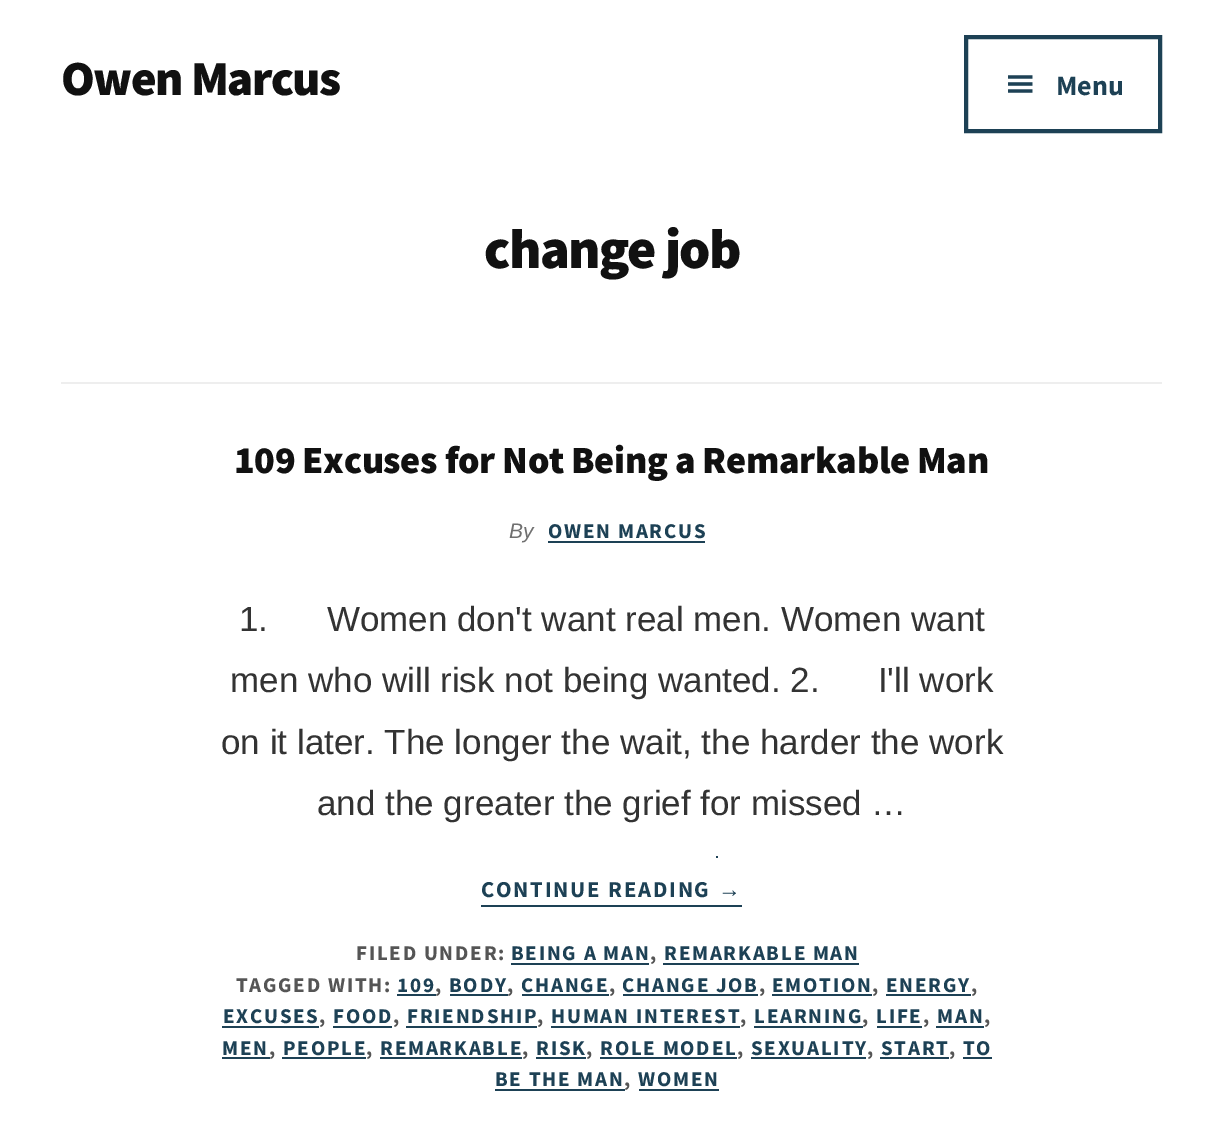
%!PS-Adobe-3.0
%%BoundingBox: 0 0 1223 1144
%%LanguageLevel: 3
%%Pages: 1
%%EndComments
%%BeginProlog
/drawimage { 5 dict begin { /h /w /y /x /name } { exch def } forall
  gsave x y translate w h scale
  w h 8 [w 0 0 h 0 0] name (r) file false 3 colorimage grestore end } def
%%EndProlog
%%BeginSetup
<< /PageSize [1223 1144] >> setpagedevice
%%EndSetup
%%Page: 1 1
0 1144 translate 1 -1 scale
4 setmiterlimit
1 setgray
0 0 1223 1144 rectfill
0.114 0.255 0.333 setrgbcolor
4 setlinewidth
966 37 194 94 rectstroke
(images/1.raw) 1008 75 25 18 drawimage
0.933 setgray
61 382 1101 2 rectfill
0.114 0.255 0.333 setrgbcolor
548 541 157 2 rectfill
716 856 2 2 rectfill
481 905 261 2 rectfill
511 963 138 2 rectfill
663 963 196 2 rectfill
397 994 39 2 rectfill
450 994 58 2 rectfill
522 994 87 2 rectfill
623 994 135 2 rectfill
772 994 100 2 rectfill
886 994 85 2 rectfill
222 1026 97 2 rectfill
333 1026 59 2 rectfill
406 1026 131 2 rectfill
551 1026 189 2 rectfill
754 1026 109 2 rectfill
877 1026 45 2 rectfill
936 1026 48 2 rectfill
222 1057 48 2 rectfill
282 1057 84 2 rectfill
380 1057 142 2 rectfill
536 1057 50 2 rectfill
600 1057 137 2 rectfill
751 1057 115 2 rectfill
880 1057 69 2 rectfill
963 1057 29 2 rectfill
495 1089 130 2 rectfill
639 1089 80 2 rectfill
/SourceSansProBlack-Black [49 0 0 -49 0 0] selectfont
0.067 setgray
61 95 moveto -1.5 0 (Owen Marcus) ashow
/SourceSansPro-Bold [28 0 0 -28 0 0] selectfont
0.114 0.255 0.333 setrgbcolor
1056 95 moveto (Menu) show
/SourceSansProBlack-Black [56 0 0 -56 0 0] selectfont
0.067 setgray
484 268 moveto -1.75 0 (change job) ashow
/SourceSansProBlack-Black [38.5 0 0 -38.5 0 0] selectfont
234 473 moveto -0.4 0 (109 Excuses for Not Being a Remarkable Man) ashow
/LiberationSans-Italic [21 0 0 -21 0 0] selectfont
0.439 setgray
509 538 moveto (By) show
/SourceSansPro-Bold [21 0 0 -21 0 0] selectfont
0.114 0.255 0.333 setrgbcolor
548 538 moveto 1.75 0 (OWEN MARCUS) ashow
/LiberationSans-Regular [35 0 0 -35 0 0] selectfont
0.2 setgray
239 631 moveto (1.      Women don't want real men. Women want) show
230 692 moveto (men who will risk not being wanted. 2.      I'll work) show
221 754 moveto (on it later. The longer the wait, the harder the work) show
317 815 moveto (and the greater the grief for missed …) show
/SourceSansPro-Bold [22.75 0 0 -22.75 0 0] selectfont
0.114 0.255 0.333 setrgbcolor
481 897 moveto 1.8 0 (CONTINUE READING) ashow
/LiberationSans-Bold [22.75 0 0 -22.75 0 0] selectfont
718 897 moveto 1.8 0 (→) ashow
/SourceSansPro-Bold [21 0 0 -21 0 0] selectfont
0.333 setgray
356 960 moveto 1.75 0 (FILED UNDER:) ashow
0.114 0.255 0.333 setrgbcolor
511 960 moveto 1.75 0 (BEING A MAN) ashow
0.333 setgray
650 960 moveto 1.75 0 (,) ashow
0.114 0.255 0.333 setrgbcolor
664 960 moveto 1.75 0 (REMARKABLE MAN) ashow
0.333 setgray
236 992 moveto 1.75 0 (TAGGED WITH:) ashow
0.114 0.255 0.333 setrgbcolor
397 992 moveto 1.75 0 (109) ashow
0.333 setgray
435 992 moveto 1.75 0 (,) ashow
0.114 0.255 0.333 setrgbcolor
449 992 moveto 1.75 0 (BODY) ashow
0.333 setgray
507 992 moveto 1.75 0 (,) ashow
0.114 0.255 0.333 setrgbcolor
521 992 moveto 1.75 0 (CHANGE) ashow
0.333 setgray
609 992 moveto 1.75 0 (,) ashow
0.114 0.255 0.333 setrgbcolor
622 992 moveto 1.75 0 (CHANGE JOB) ashow
0.333 setgray
759 992 moveto 1.75 0 (,) ashow
0.114 0.255 0.333 setrgbcolor
772 992 moveto 1.75 0 (EMOTION) ashow
0.333 setgray
872 992 moveto 1.75 0 (,) ashow
0.114 0.255 0.333 setrgbcolor
886 992 moveto 1.75 0 (ENERGY) ashow
0.333 setgray
971 992 moveto 1.75 0 (,) ashow
0.114 0.255 0.333 setrgbcolor
223 1023 moveto 1.75 0 (EXCUSES) ashow
0.333 setgray
319 1023 moveto 1.75 0 (,) ashow
0.114 0.255 0.333 setrgbcolor
333 1023 moveto 1.75 0 (FOOD) ashow
0.333 setgray
393 1023 moveto 1.75 0 (,) ashow
0.114 0.255 0.333 setrgbcolor
407 1023 moveto 1.75 0 (FRIENDSHIP) ashow
0.333 setgray
537 1023 moveto 1.75 0 (,) ashow
0.114 0.255 0.333 setrgbcolor
551 1023 moveto 1.75 0 (HUMAN INTEREST) ashow
0.333 setgray
740 1023 moveto 1.75 0 (,) ashow
0.114 0.255 0.333 setrgbcolor
754 1023 moveto 1.75 0 (LEARNING) ashow
0.333 setgray
862 1023 moveto 1.75 0 (,) ashow
0.114 0.255 0.333 setrgbcolor
876 1023 moveto 1.75 0 (LIFE) ashow
0.333 setgray
923 1023 moveto 1.75 0 (,) ashow
0.114 0.255 0.333 setrgbcolor
937 1023 moveto 1.75 0 (MAN) ashow
0.333 setgray
984 1023 moveto 1.75 0 (,) ashow
0.114 0.255 0.333 setrgbcolor
222 1055 moveto 1.75 0 (MEN) ashow
0.333 setgray
269 1055 moveto 1.75 0 (,) ashow
0.114 0.255 0.333 setrgbcolor
283 1055 moveto 1.75 0 (PEOPLE) ashow
0.333 setgray
366 1055 moveto 1.75 0 (,) ashow
0.114 0.255 0.333 setrgbcolor
380 1055 moveto 1.75 0 (REMARKABLE) ashow
0.333 setgray
522 1055 moveto 1.75 0 (,) ashow
0.114 0.255 0.333 setrgbcolor
536 1055 moveto 1.75 0 (RISK) ashow
0.333 setgray
586 1055 moveto 1.75 0 (,) ashow
0.114 0.255 0.333 setrgbcolor
600 1055 moveto 1.75 0 (ROLE MODEL) ashow
0.333 setgray
737 1055 moveto 1.75 0 (,) ashow
0.114 0.255 0.333 setrgbcolor
751 1055 moveto 1.75 0 (SEXUALITY) ashow
0.333 setgray
867 1055 moveto 1.75 0 (,) ashow
0.114 0.255 0.333 setrgbcolor
881 1055 moveto 1.75 0 (START) ashow
0.333 setgray
949 1055 moveto 1.75 0 (,) ashow
0.114 0.255 0.333 setrgbcolor
963 1055 moveto 1.75 0 (TO) ashow
495 1086 moveto 1.75 0 (BE THE MAN) ashow
0.333 setgray
624 1086 moveto 1.75 0 (,) ashow
0.114 0.255 0.333 setrgbcolor
638 1086 moveto 1.75 0 (WOMEN) ashow
showpage
%%EOF
